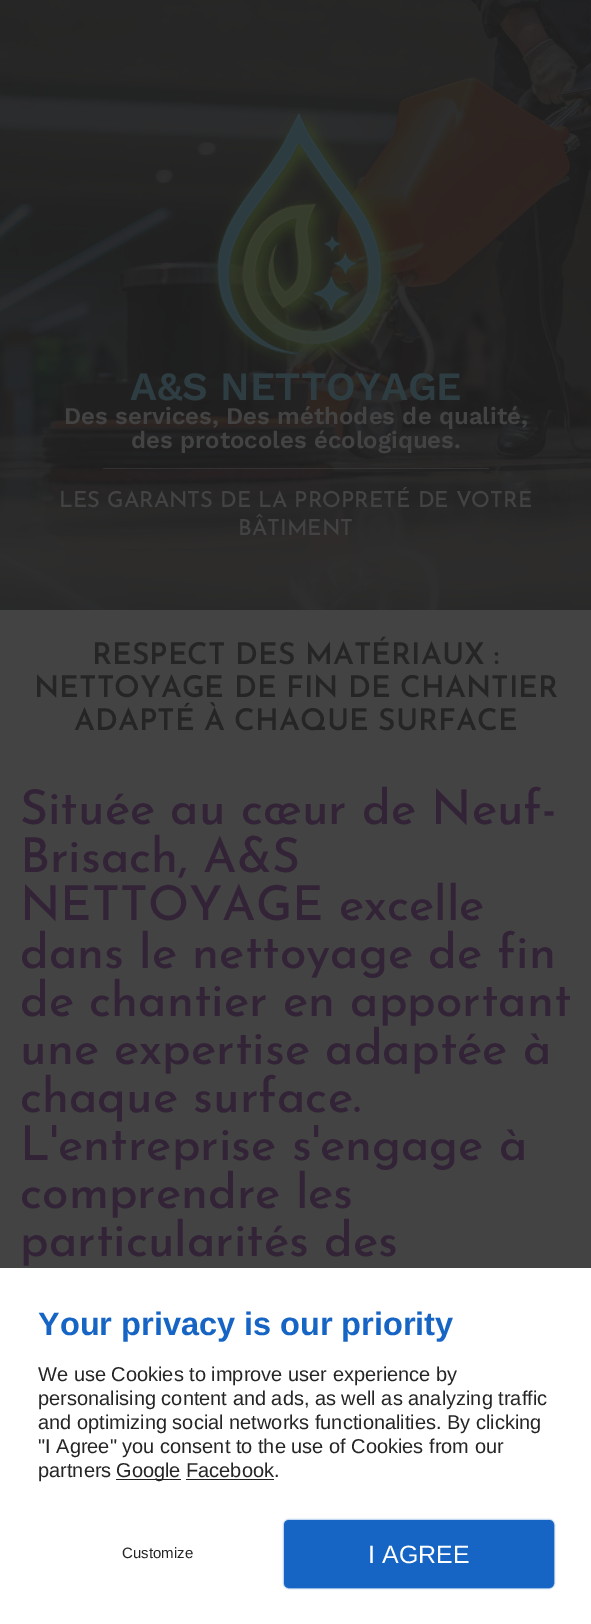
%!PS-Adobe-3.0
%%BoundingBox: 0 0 591 1624
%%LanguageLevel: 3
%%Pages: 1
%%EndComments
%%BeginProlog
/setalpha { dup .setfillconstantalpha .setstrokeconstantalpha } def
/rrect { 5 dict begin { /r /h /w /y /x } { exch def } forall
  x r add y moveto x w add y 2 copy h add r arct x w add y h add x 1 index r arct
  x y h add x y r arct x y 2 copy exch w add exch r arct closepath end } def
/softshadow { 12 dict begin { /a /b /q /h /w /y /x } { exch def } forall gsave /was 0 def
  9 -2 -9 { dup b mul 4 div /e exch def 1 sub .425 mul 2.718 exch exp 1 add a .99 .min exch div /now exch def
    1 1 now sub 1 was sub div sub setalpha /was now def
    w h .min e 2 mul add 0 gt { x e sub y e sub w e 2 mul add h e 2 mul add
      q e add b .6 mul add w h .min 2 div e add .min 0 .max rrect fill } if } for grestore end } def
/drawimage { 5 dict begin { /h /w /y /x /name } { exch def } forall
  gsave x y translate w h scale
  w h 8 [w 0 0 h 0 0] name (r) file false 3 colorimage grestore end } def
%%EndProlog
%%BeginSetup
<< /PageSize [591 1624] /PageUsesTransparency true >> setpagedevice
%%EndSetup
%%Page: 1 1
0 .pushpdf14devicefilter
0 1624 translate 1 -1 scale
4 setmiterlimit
0.263 setgray
0 0 591 1624 rectfill
(images/1.raw) 0 0 591 610 drawimage
(images/2.raw) 209 107 192 263 drawimage
0.5 setalpha
103 468 386 1 rectfill
1 setalpha
1 setgray
0 1268 591 356 rectfill
0.133 setgray
116 1479 65 1 rectfill
0.086 0.396 0.769 setrgbcolor
283 1519 272 70 6 0.5 0.3 softshadow
285.5 1521.5 267 65 3.5 rrect gsave fill grestore
3 setlinewidth
stroke
/WorkSans-SemiBold [40 0 0 -40 0 0] selectfont
0.18 0.239 0.259 setrgbcolor
130 400 moveto (A&S NETTOYAGE) show
/WorkSans-SemiBold [24 0 0 -24 0 0] selectfont
0.263 setgray
64 424 moveto (Des services, Des méthodes de qualité,) show
131 448 moveto (des protocoles écologiques.) show
/JosefinSans-Medium [22 0 0 -22 0 0] selectfont
59 507 moveto (LES GARANTS DE LA PROPRETÉ DE VOTRE) show
238 535 moveto (BÂTIMENT) show
/JosefinSans-SemiBold [30 0 0 -30 0 0] selectfont
0.145 setgray
92 664 moveto (RESPECT DES MATÉRIAUX :) show
34 697 moveto (NETTOYAGE DE FIN DE CHANTIER) show
74 730 moveto (ADAPTÉ À CHAQUE SURFACE) show
/JosefinSans-Medium [48 0 0 -48 0 0] selectfont
0.2 0.137 0.216 setrgbcolor
20 824 moveto (Située au cœur de Neuf-) show
20 872 moveto (Brisach, A&S) show
20 920 moveto (NETTOYAGE excelle) show
20 968 moveto (dans le nettoyage de fin) show
20 1016 moveto (de chantier en apportant) show
20 1064 moveto (une expertise adaptée à) show
20 1112 moveto (chaque surface.) show
20 1160 moveto (L'entreprise s'engage à) show
20 1208 moveto (comprendre les) show
20 1256 moveto (particularités des) show
/LiberationSans-Bold [32.5 0 0 -32.5 0 0] selectfont
0.086 0.396 0.769 setrgbcolor
38 1335 moveto (Your privacy is our priority) show
/LiberationSans-Regular [20 0 0 -20 0 0] selectfont
0.145 setgray
38 1381 moveto (We use Cookies to improve user experience by) show
38 1405 moveto (personalising content and ads, as well as analyzing traffic) show
38 1429 moveto (and optimizing social networks functionalities. By clicking) show
38 1453 moveto ("I Agree" you consent to the use of Cookies from our) show
38 1477 moveto (partners) show
116 1477 moveto (Google Facebook.) show
0.133 setgray
186 1479 88 1 rectfill
/LiberationSans-Regular [15 0 0 -15 0 0] selectfont
0.145 setgray
122 1558 moveto (Customize) show
/LiberationSans-Regular [25 0 0 -25 0 0] selectfont
1 setgray
368 1563 moveto (I AGREE) show
.poppdf14devicefilter showpage
%%EOF
